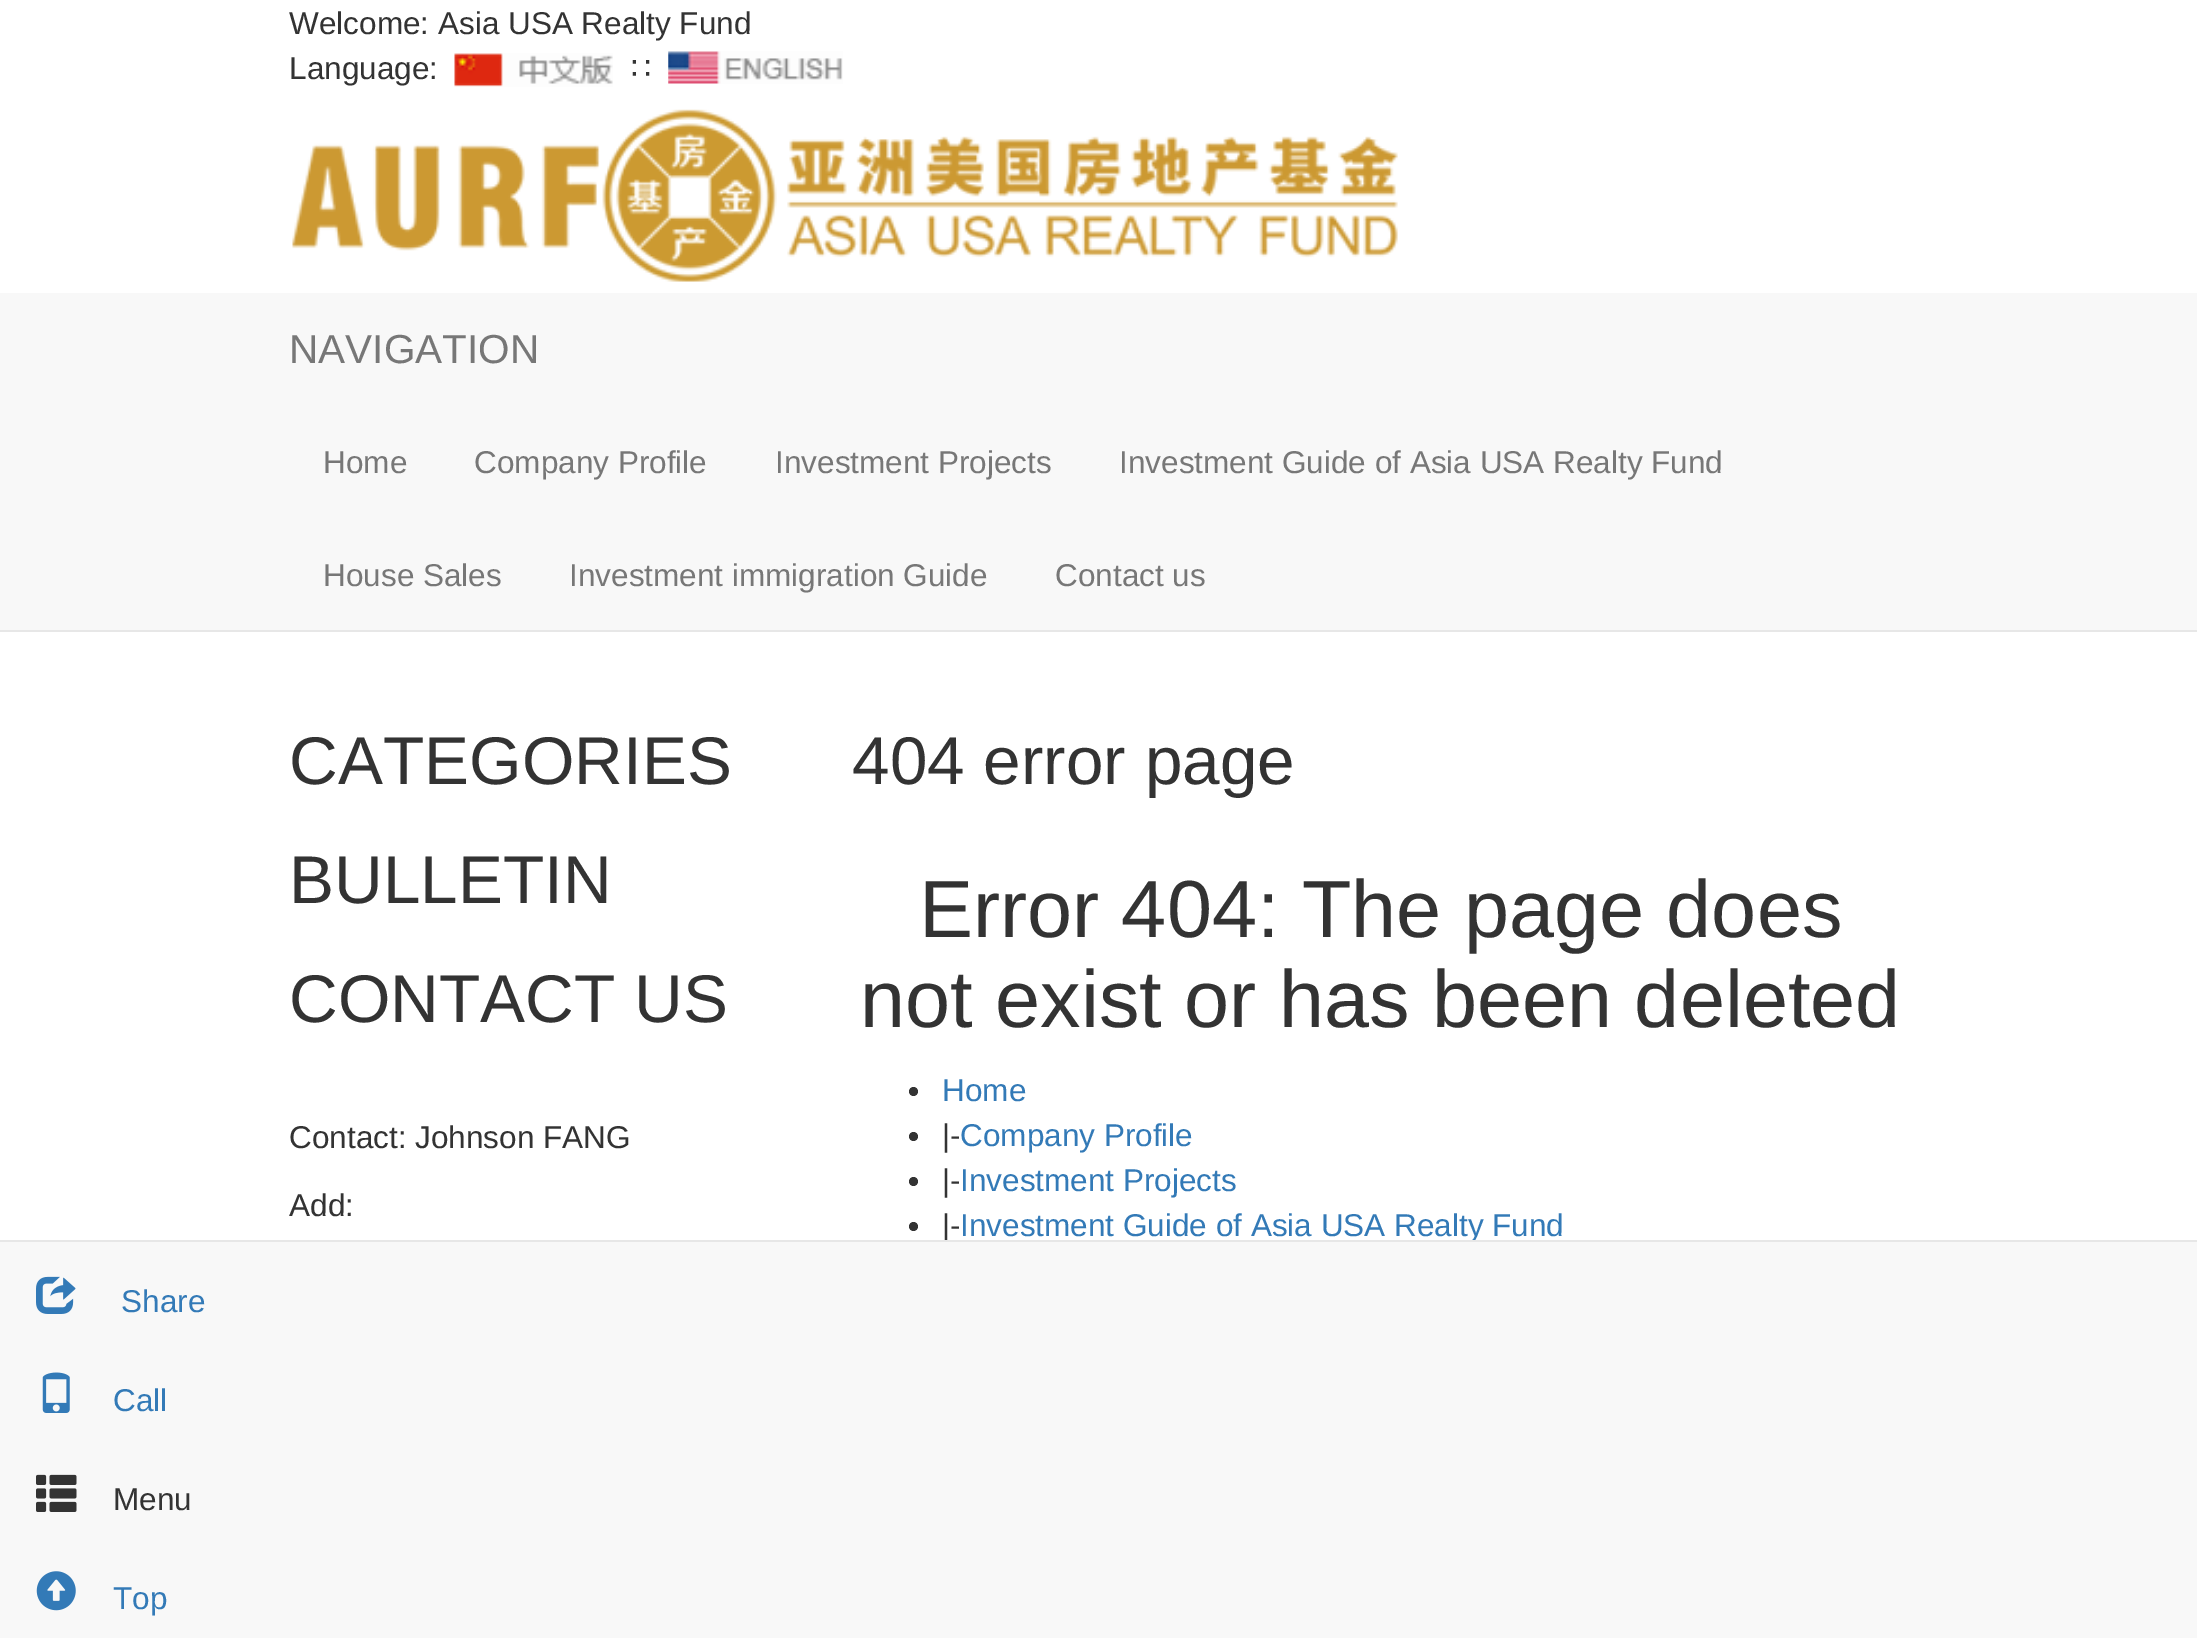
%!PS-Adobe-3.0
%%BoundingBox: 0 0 2197 1638
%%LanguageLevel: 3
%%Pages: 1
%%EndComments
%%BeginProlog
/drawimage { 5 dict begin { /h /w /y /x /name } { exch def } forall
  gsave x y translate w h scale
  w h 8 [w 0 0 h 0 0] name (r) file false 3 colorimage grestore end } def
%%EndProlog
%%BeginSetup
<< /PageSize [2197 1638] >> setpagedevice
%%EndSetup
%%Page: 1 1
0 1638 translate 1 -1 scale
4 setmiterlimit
1 setgray
0 0 2197 1638 rectfill
(images/1.raw) 454 53 159 34 drawimage
(images/2.raw) 668 51 175 33 drawimage
(images/3.raw) 292 109 1106 173 drawimage
0.973 setgray
0 293 2197 337 rectfill
0.906 setgray
0 630 2197 2 rectfill
0.2 setgray
newpath 913.5 1091.5 4.5 0 360 arc closepath fill
newpath 913.5 1136.5 4.5 0 360 arc closepath fill
newpath 913.5 1181.5 4.5 0 360 arc closepath fill
newpath 913.5 1226.5 4.5 0 360 arc closepath fill
/LiberationSans-Regular [31.5 0 0 -31.5 0 0] selectfont
289 34 moveto (Welcome: Asia USA Realty Fund) show
289 79 moveto (Language:) show
/DejaVuSans-Regular [31.5 0 0 -31.5 0 0] selectfont
631 79 moveto (∷) show
/LiberationSans-Regular [40.5 0 0 -40.5 0 0] selectfont
0.467 setgray
289 363 moveto (NAVIGATION) show
/LiberationSans-Regular [31.5 0 0 -31.5 0 0] selectfont
323 473 moveto (Home) show
474 473 moveto (Company Profile) show
775 473 moveto (Investment Projects) show
1119 473 moveto (Investment Guide of Asia USA Realty Fund) show
323 586 moveto (House Sales) show
569 586 moveto (Investment immigration Guide) show
1055 586 moveto (Contact us) show
/LiberationSans-Regular [67.5 0 0 -67.5 0 0] selectfont
0.2 setgray
289 784 moveto (CATEGORIES) show
289 903 moveto (BULLETIN) show
289 1022 moveto (CONTACT US) show
/LiberationSans-Regular [31.5 0 0 -31.5 0 0] selectfont
289 1148 moveto (Contact: Johnson FANG) show
289 1216 moveto (Add:) show
/LiberationSans-Regular [67.5 0 0 -67.5 0 0] selectfont
852 784 moveto (404 error page) show
/LiberationSans-Regular [81 0 0 -81 0 0] selectfont
919 937 moveto (Error 404: The page does) show
860 1027 moveto (not exist or has been deleted) show
/LiberationSans-Regular [31.5 0 0 -31.5 0 0] selectfont
0.2 0.478 0.718 setrgbcolor
942 1101 moveto (Home) show
0.2 setgray
942 1146 moveto (|-) show
0.2 0.478 0.718 setrgbcolor
960 1146 moveto (Company Profile) show
0.2 setgray
942 1191 moveto (|-) show
0.2 0.478 0.718 setrgbcolor
960 1191 moveto (Investment Projects) show
0.2 setgray
942 1236 moveto (|-) show
0.2 0.478 0.718 setrgbcolor
960 1236 moveto (Investment Guide of Asia USA Realty Fund) show
0.973 setgray
0 1242 2197 396 rectfill
0.906 setgray
0 1240 2197 2 rectfill
(images/4.raw) 36 1276 40 38 drawimage
0.2 0.478 0.718 setrgbcolor
121 1312 moveto (Share) show
(images/5.raw) 42 1372 28 41 drawimage
113 1411 moveto (Call) show
(images/6.raw) 36 1474 41 38 drawimage
0.2 setgray
113 1510 moveto (Menu) show
(images/7.raw) 36 1571 40 40 drawimage
0.2 0.478 0.718 setrgbcolor
113 1609 moveto (Top) show
showpage
%%EOF
